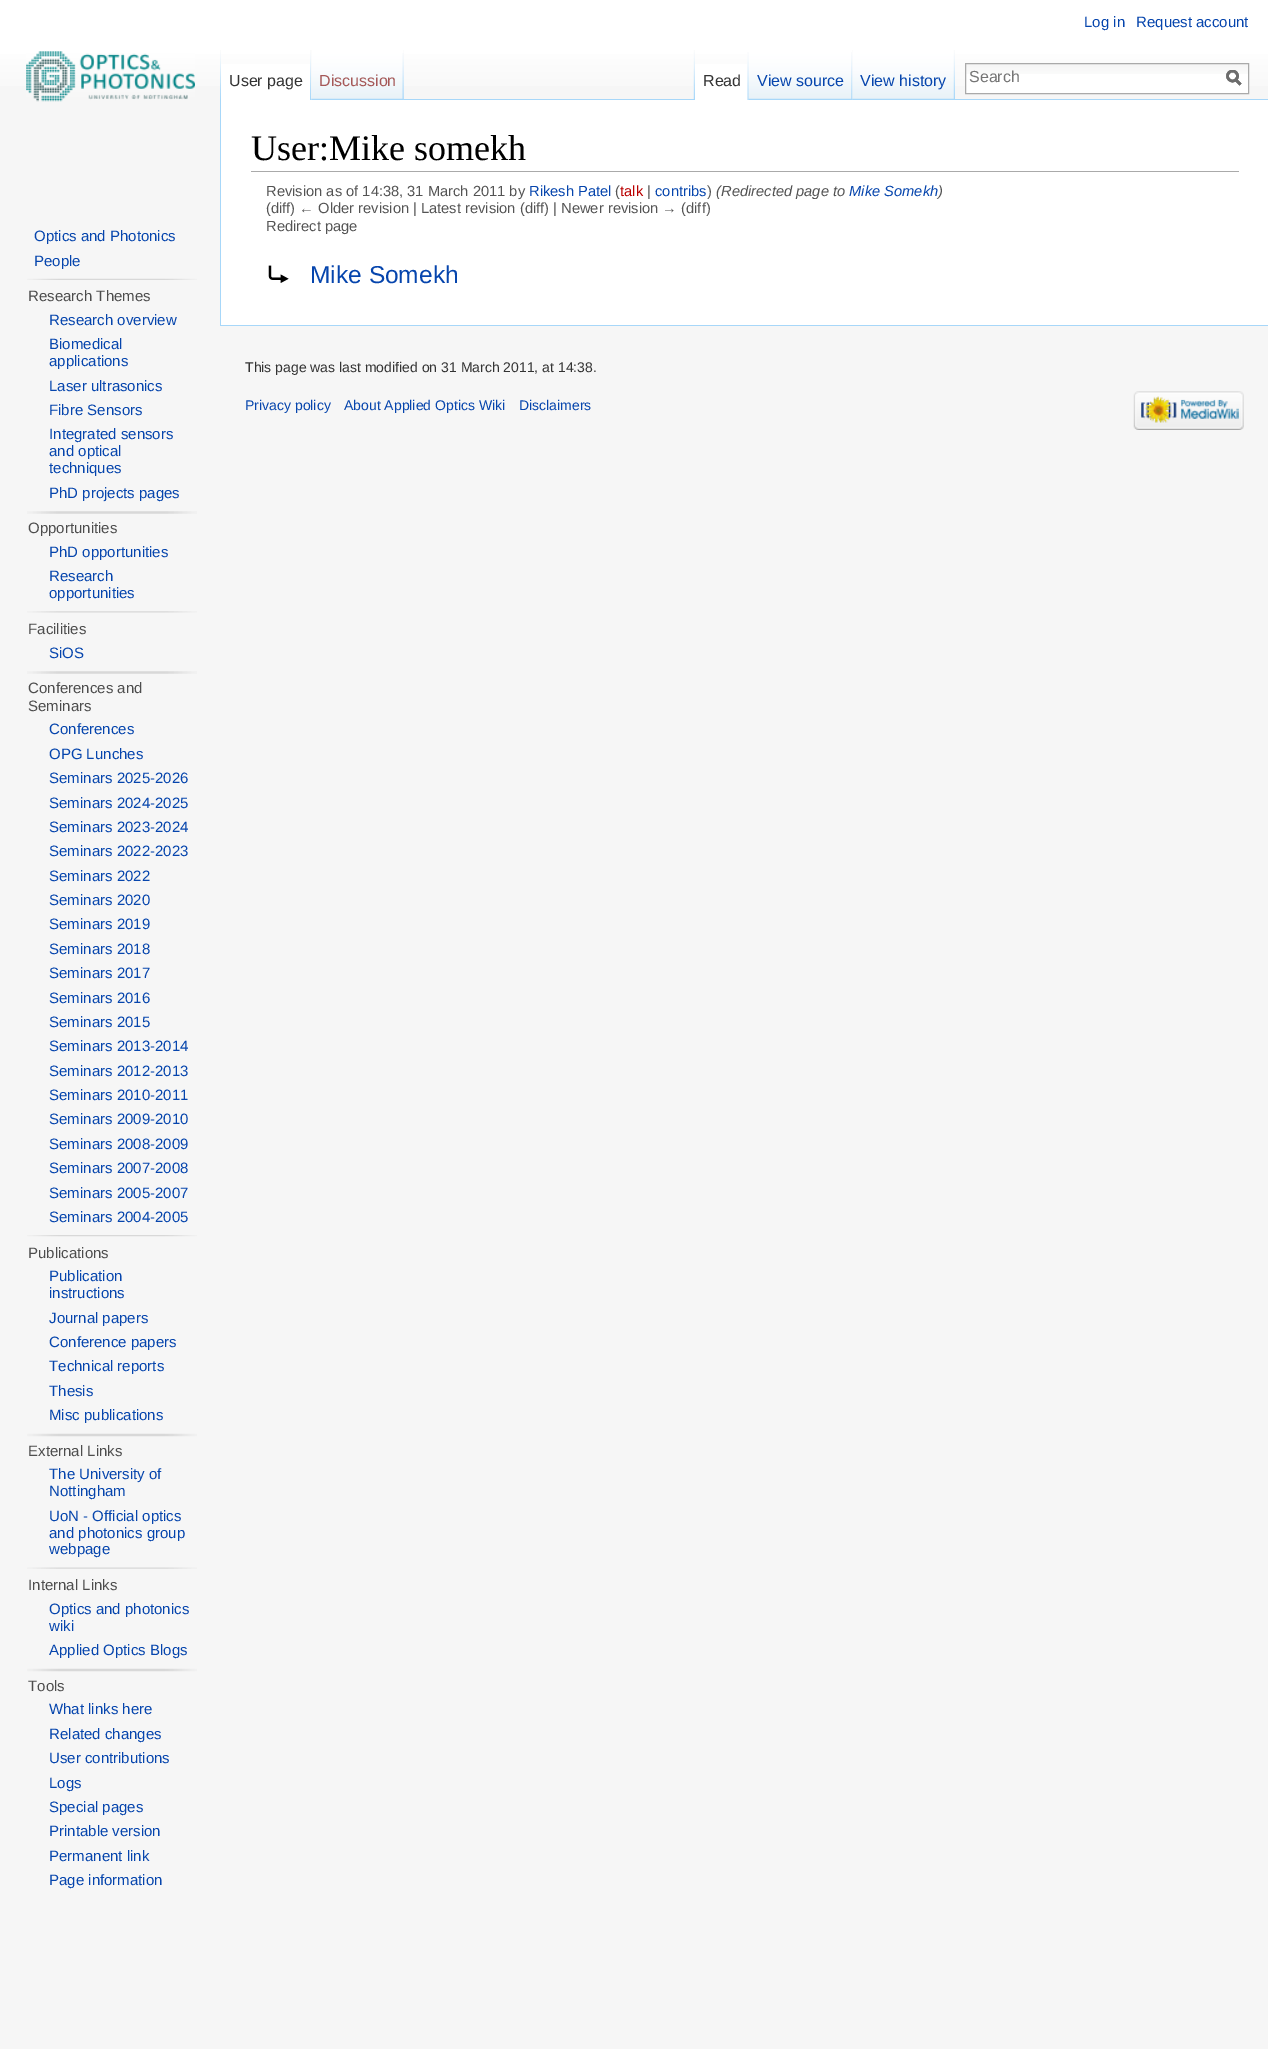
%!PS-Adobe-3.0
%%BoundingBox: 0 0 1268 2049
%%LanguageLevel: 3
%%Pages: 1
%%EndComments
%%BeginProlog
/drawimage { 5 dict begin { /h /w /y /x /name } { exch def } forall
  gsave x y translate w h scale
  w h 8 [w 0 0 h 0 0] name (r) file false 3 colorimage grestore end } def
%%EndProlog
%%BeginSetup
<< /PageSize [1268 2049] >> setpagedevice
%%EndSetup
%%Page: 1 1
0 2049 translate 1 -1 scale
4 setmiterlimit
0.965 setgray
0 0 1268 2049 rectfill
gsave newpath 0 0 moveto 1268 0 lineto 1268 86 lineto 0 86 lineto closepath clip newpath
<< /ShadingType 2 /ColorSpace /DeviceRGB /Coords [634 0 634 100] /Extend [true true] /Function << /FunctionType 3 /Domain [0 1] /Functions [<< /FunctionType 2 /Domain [0 1] /C0 [1 1 1] /C1 [1 1 1] /N 1 >> << /FunctionType 2 /Domain [0 1] /C0 [1 1 1] /C1 [0.965 0.965 0.965] /N 1 >>] /Bounds [0.5] /Encode [0 1 0 1] >> >> shfill grestore
(images/1.raw) 220 50 1 49 drawimage
(images/2.raw) 403 52 1 47 drawimage
1 setgray
221 64 91 36 rectfill
(images/3.raw) 310 50 2 50 drawimage
0.655 0.843 0.976 setrgbcolor
403 99 865 1 rectfill
(images/4.raw) 311 50 93 50 drawimage
(images/5.raw) 402 53 2 47 drawimage
(images/6.raw) 693 50 2 49 drawimage
1 setgray
695 64 54 36 rectfill
(images/7.raw) 747 52 2 48 drawimage
(images/8.raw) 748 50 105 50 drawimage
(images/9.raw) 851 52 2 48 drawimage
(images/10.raw) 852 50 103 50 drawimage
(images/11.raw) 953 50 2 49 drawimage
966 74 282 19 rectfill
(images/12.raw) 966 64 282 10 drawimage
0.667 setgray
965.5 63.5 283 30 rectstroke
0.424 setgray
2.5 setlinewidth
newpath 1240.5 84.5 moveto 1235.5 79.5 lineto stroke
gsave
1226 70 15 16 rectclip
newpath 1232.5 76 5 0 360 arc closepath stroke
grestore
newpath 1240.5 84.5 moveto 1235.5 79.5 lineto stroke
gsave
1226 70 15 16 rectclip
newpath 1232.5 76 5 0 360 arc closepath stroke
grestore
(images/13.raw) 26 51 169 51 drawimage
(images/14.raw) 27 278 170 2 drawimage
(images/15.raw) 27 511 170 3 drawimage
(images/16.raw) 27 611 170 2 drawimage
(images/15.raw) 27 671 170 3 drawimage
(images/17.raw) 27 1235 170 2 drawimage
(images/18.raw) 27 1433 170 4 drawimage
(images/19.raw) 27 1567 170 2 drawimage
(images/18.raw) 27 1668 170 4 drawimage
1 setgray
221 100 1047 225 rectfill
0.655 0.843 0.976 setrgbcolor
220 325 1048 1 rectfill
220 99 1 227 rectfill
0.667 setgray
251 171 988 1 rectfill
(images/20.raw) 268 265 21 18 drawimage
(images/21.raw) 1133 391 111 39 drawimage
/LiberationSans-Regular [15 0 0 -15 0 0] selectfont
0.024 0.271 0.678 setrgbcolor
1084 27 moveto (Log in) show
1136 27 moveto (Request account) show
/LiberationSans-Regular [16 0 0 -16 0 0] selectfont
0.2 setgray
229 86 moveto (User page) show
0.647 0.345 0.345 setrgbcolor
319 86 moveto (Discussion) show
0.2 setgray
703 86 moveto (Read) show
0.024 0.271 0.678 setrgbcolor
757 86 moveto (View source) show
860 86 moveto (View history) show
0.459 setgray
969 82 moveto (Search) show
/LiberationSans-Regular [15 0 0 -15 0 0] selectfont
0.024 0.271 0.678 setrgbcolor
34 241 moveto (Optics and Photonics) show
34 266 moveto (People) show
0.302 setgray
28 301 moveto (Research Themes) show
0.024 0.271 0.678 setrgbcolor
49 325 moveto (Research overview) show
49 349 moveto (Biomedical) show
49 366 moveto (applications) show
49 391 moveto (Laser ultrasonics) show
49 415 moveto (Fibre Sensors) show
49 439 moveto (Integrated sensors) show
49 456 moveto (and optical) show
49 473 moveto (techniques) show
49 498 moveto (PhD projects pages) show
0.302 setgray
28 533 moveto (Opportunities) show
0.024 0.271 0.678 setrgbcolor
49 557 moveto (PhD opportunities) show
49 581 moveto (Research) show
49 598 moveto (opportunities) show
0.302 setgray
28 634 moveto (Facilities) show
0.024 0.271 0.678 setrgbcolor
49 658 moveto (SiOS) show
0.302 setgray
28 693 moveto (Conferences and) show
28 711 moveto (Seminars) show
0.024 0.271 0.678 setrgbcolor
49 734 moveto (Conferences) show
49 759 moveto (OPG Lunches) show
49 783 moveto (Seminars 2025-2026) show
49 808 moveto (Seminars 2024-2025) show
49 832 moveto (Seminars 2023-2024) show
49 856 moveto (Seminars 2022-2023) show
49 881 moveto (Seminars 2022) show
49 905 moveto (Seminars 2020) show
49 929 moveto (Seminars 2019) show
49 954 moveto (Seminars 2018) show
49 978 moveto (Seminars 2017) show
49 1003 moveto (Seminars 2016) show
49 1027 moveto (Seminars 2015) show
49 1051 moveto (Seminars 2013-2014) show
49 1076 moveto (Seminars 2012-2013) show
49 1100 moveto (Seminars 2010-2011) show
49 1124 moveto (Seminars 2009-2010) show
49 1149 moveto (Seminars 2008-2009) show
49 1173 moveto (Seminars 2007-2008) show
49 1198 moveto (Seminars 2005-2007) show
49 1222 moveto (Seminars 2004-2005) show
0.302 setgray
28 1258 moveto (Publications) show
0.024 0.271 0.678 setrgbcolor
49 1281 moveto (Publication) show
49 1298 moveto (instructions) show
49 1323 moveto (Journal papers) show
49 1347 moveto (Conference papers) show
49 1371 moveto (Technical reports) show
49 1396 moveto (Thesis) show
49 1420 moveto (Misc publications) show
0.302 setgray
28 1456 moveto (External Links) show
0.024 0.271 0.678 setrgbcolor
49 1479 moveto (The University of) show
49 1496 moveto (Nottingham) show
49 1521 moveto (UoN - Official optics) show
49 1538 moveto (and photonics group) show
49 1554 moveto (webpage) show
0.302 setgray
28 1590 moveto (Internal Links) show
0.024 0.271 0.678 setrgbcolor
49 1614 moveto (Optics and photonics) show
49 1631 moveto (wiki) show
49 1655 moveto (Applied Optics Blogs) show
0.302 setgray
28 1691 moveto (Tools) show
0.024 0.271 0.678 setrgbcolor
49 1714 moveto (What links here) show
49 1739 moveto (Related changes) show
49 1763 moveto (User contributions) show
49 1788 moveto (Logs) show
49 1812 moveto (Special pages) show
49 1836 moveto (Printable version) show
49 1861 moveto (Permanent link) show
49 1885 moveto (Page information) show
/LiberationSerif-Regular [36 0 0 -36 0 0] selectfont
0 setgray
251 160 moveto (User:Mike somekh) show
/LiberationSans-Regular [14.7 0 0 -14.7 0 0] selectfont
0.329 setgray
266 196 moveto (Revision as of 14:38, 31 March 2011 by) show
0.024 0.271 0.678 setrgbcolor
529 196 moveto (Rikesh Patel) show
0.329 setgray
615 196 moveto (\() show
0.729 0 0 setrgbcolor
620 196 moveto (talk) show
0.329 setgray
647 196 moveto (|) show
0.024 0.271 0.678 setrgbcolor
655 196 moveto (contribs) show
0.329 setgray
707 196 moveto (\)) show
/LiberationSans-Italic [14.7 0 0 -14.7 0 0] selectfont
716 196 moveto (\(Redirected page to) show
0.024 0.271 0.678 setrgbcolor
849 196 moveto (Mike Somekh) show
0.329 setgray
938 196 moveto (\)) show
/LiberationSans-Regular [14.7 0 0 -14.7 0 0] selectfont
266 213 moveto (\(diff\) ← Older revision | Latest revision \(diff\) | Newer revision → \(diff\)) show
266 231 moveto (Redirect page) show
/LiberationSans-Regular [24.5 0 0 -24.5 0 0] selectfont
0.024 0.271 0.678 setrgbcolor
310 283 moveto (Mike Somekh) show
/LiberationSans-Regular [14 0 0 -14 0 0] selectfont
0.2 setgray
245 372 moveto (This page was last modified on 31 March 2011, at 14:38.) show
0.024 0.271 0.678 setrgbcolor
245 410 moveto (Privacy policy) show
344 410 moveto (About Applied Optics Wiki) show
519 410 moveto (Disclaimers) show
showpage
%%EOF
